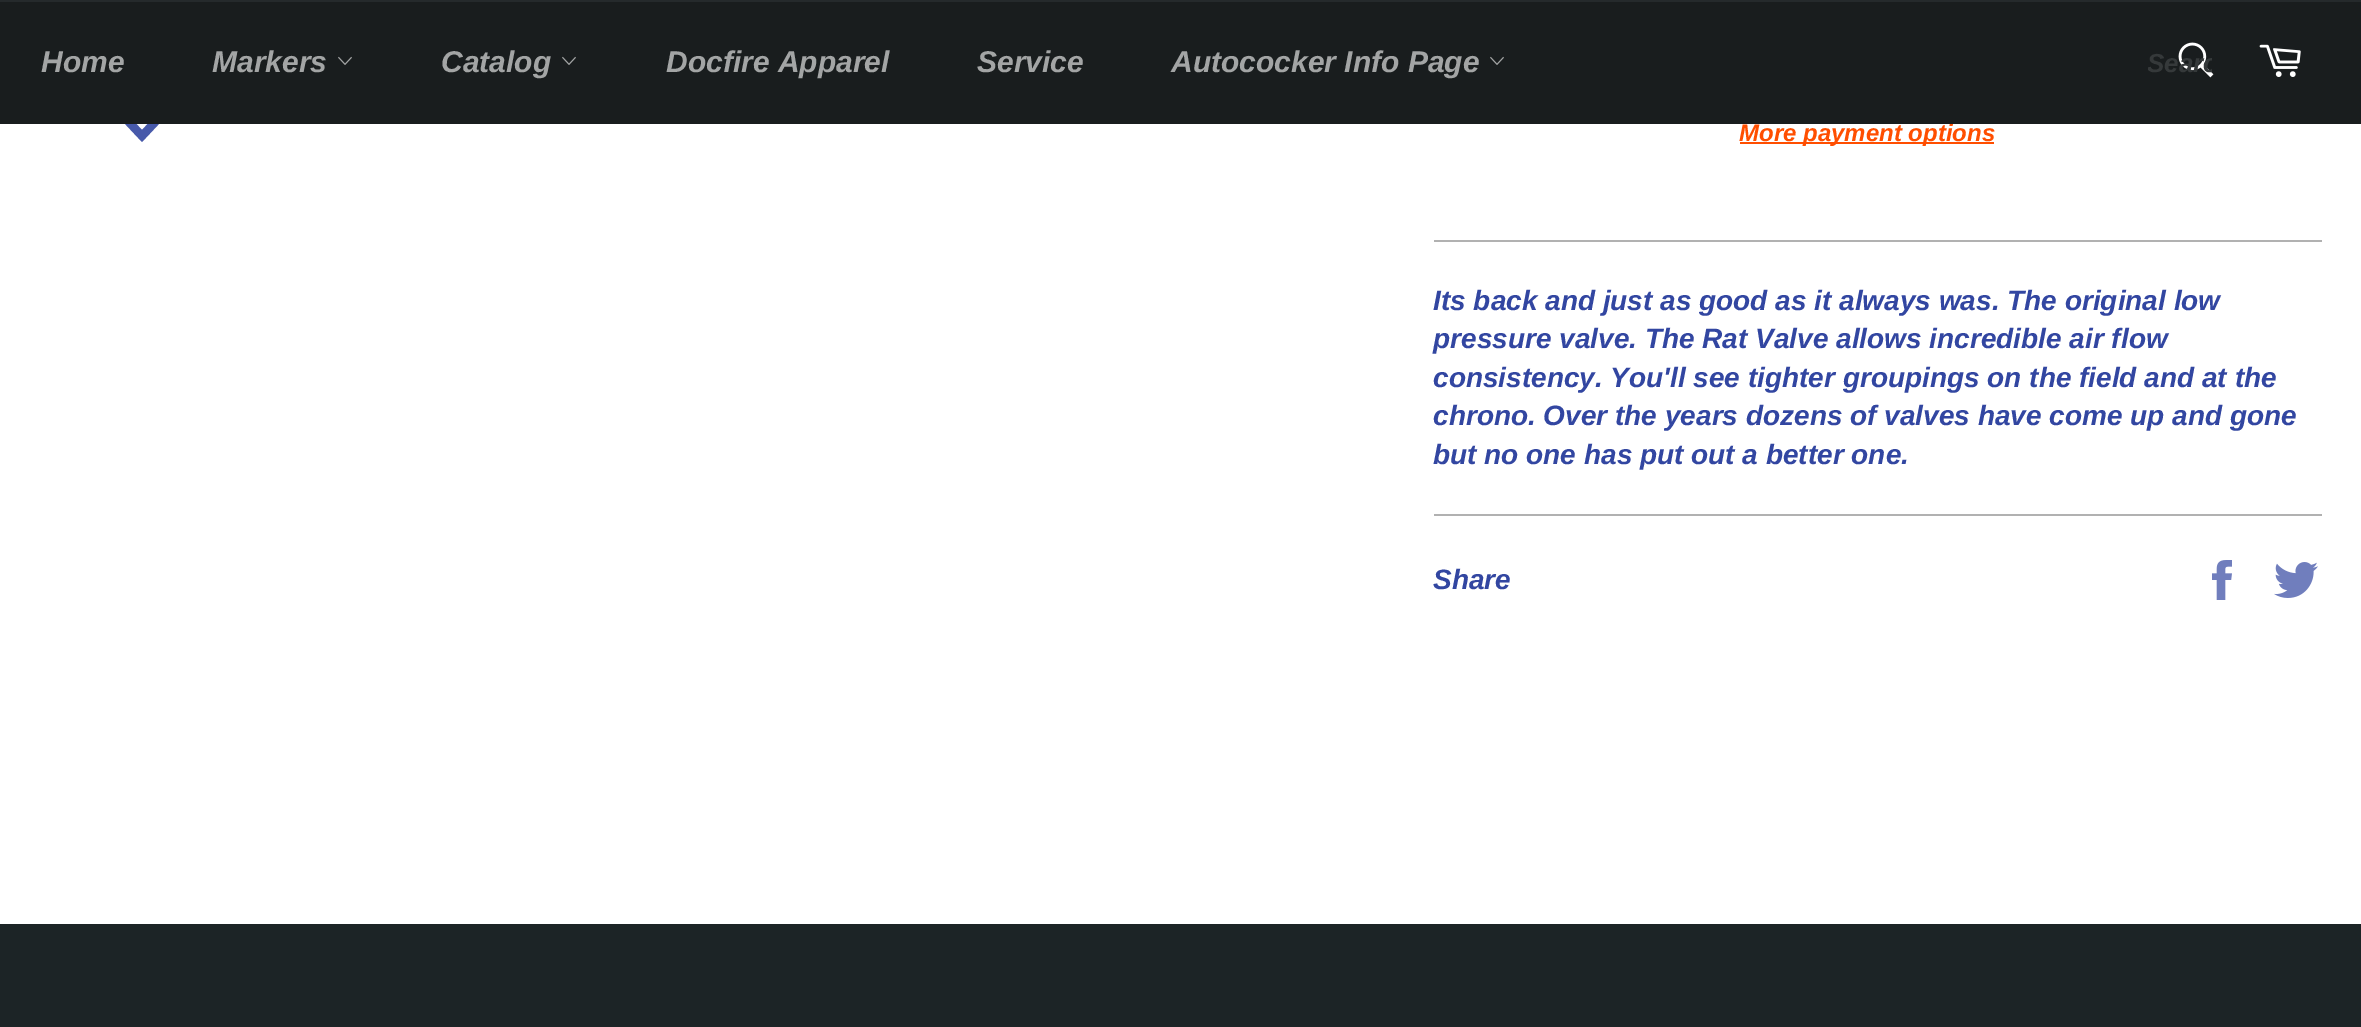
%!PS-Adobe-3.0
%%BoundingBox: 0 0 2361 1027
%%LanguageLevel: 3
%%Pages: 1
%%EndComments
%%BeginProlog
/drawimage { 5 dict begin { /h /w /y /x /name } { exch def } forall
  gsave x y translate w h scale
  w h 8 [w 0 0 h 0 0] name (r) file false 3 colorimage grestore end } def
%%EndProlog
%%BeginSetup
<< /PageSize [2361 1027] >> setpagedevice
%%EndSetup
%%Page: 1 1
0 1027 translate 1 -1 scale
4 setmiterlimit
1 setgray
0 0 2361 1027 rectfill
0.145 0.165 0.173 setrgbcolor
0 0 2361 2 rectfill
0.278 0.349 0.667 setrgbcolor
newpath 183 86 moveto 189 92 lineto 142 142 lineto 95 92 lineto 101 86 lineto 142 130 lineto closepath fill
1 0.306 0 setrgbcolor
1740 142 254 2 rectfill
0.694 setgray
1434 240 888 2 rectfill
1434 514 888 2 rectfill
(images/4.raw) 2212 560 20 40 drawimage
(images/5.raw) 2274 562 44 36 drawimage
0.11 0.141 0.149 setrgbcolor
0 924 2361 103 rectfill
/Arimo-BoldItalic [24 0 0 -24 0 0] selectfont
1 0.306 0 setrgbcolor
1739 141 moveto (More payment options) show
0.098 0.114 0.118 setrgbcolor
0 2 2361 122 rectfill
(images/2.raw) 2178 42 36 36 drawimage
gsave
2148 48 64 30 rectclip
/Arimo-BoldItalic [26 0 0 -26 0 0] selectfont
0.208 0.224 0.227 setrgbcolor
2147 72 moveto (Searc) show
grestore
(images/3.raw) 2259 44 42 33 drawimage
(images/1.raw) 1490 56 14 9 drawimage
/Arimo-BoldItalic [30 0 0 -30 0 0] selectfont
0.639 0.647 0.647 setrgbcolor
1171 72 moveto (Autococker Info Page) show
977 72 moveto (Service) show
666 72 moveto (Docfire Apparel) show
(images/1.raw) 562 56 14 9 drawimage
441 72 moveto (Catalog) show
(images/1.raw) 338 56 14 9 drawimage
212 72 moveto (Markers) show
41 72 moveto (Home) show
/Arimo-BoldItalic [28 0 0 -28 0 0] selectfont
0.196 0.275 0.631 setrgbcolor
1433 310 moveto (Its back and just as good as it always was. The original low) show
1433 348 moveto (pressure valve. The Rat Valve allows incredible air flow) show
1433 387 moveto (consistency. You'll see tighter groupings on the field and at the) show
1433 425 moveto (chrono. Over the years dozens of valves have come up and gone) show
1433 464 moveto (but no one has put out a better one.) show
1433 589 moveto (Share) show
showpage
%%EOF
